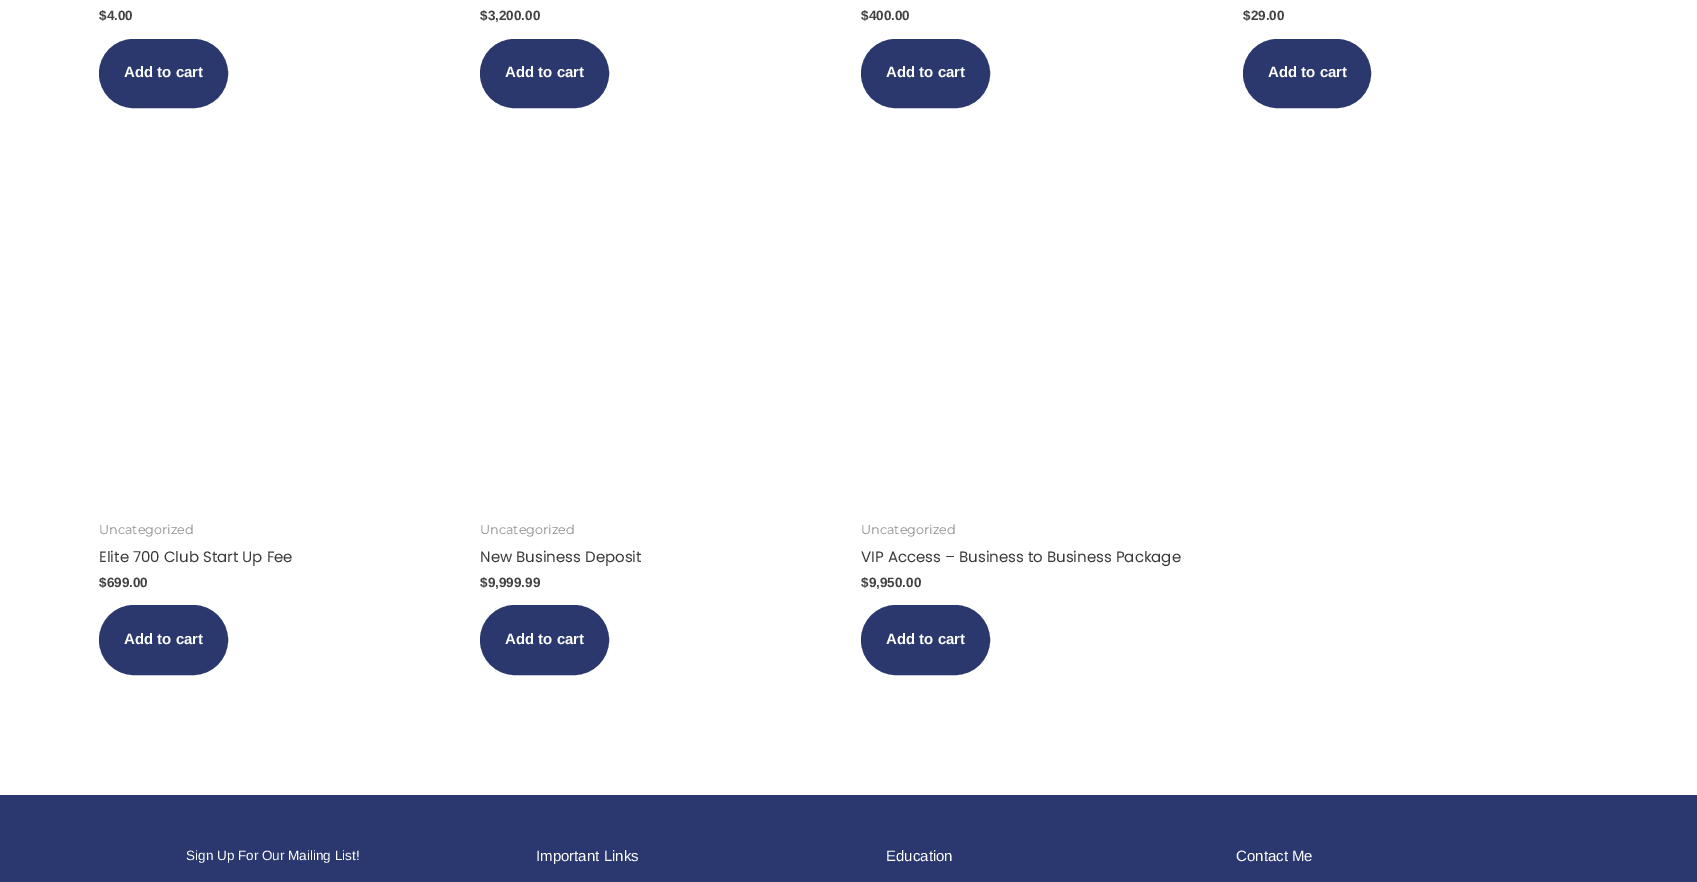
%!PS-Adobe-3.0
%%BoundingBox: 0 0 1697 882
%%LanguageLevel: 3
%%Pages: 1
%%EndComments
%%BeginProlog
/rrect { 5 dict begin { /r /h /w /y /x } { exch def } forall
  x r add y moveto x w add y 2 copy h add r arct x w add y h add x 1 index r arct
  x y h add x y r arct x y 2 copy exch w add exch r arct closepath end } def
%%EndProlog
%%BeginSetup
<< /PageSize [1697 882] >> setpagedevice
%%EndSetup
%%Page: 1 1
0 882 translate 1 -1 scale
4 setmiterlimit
1 setgray
0 0 1697 882 rectfill
0.169 0.22 0.427 setrgbcolor
105.5 45.5 116 56 28 rrect gsave fill grestore
13 setlinewidth
stroke
486.5 45.5 116 56 28 rrect gsave fill grestore
stroke
867.5 45.5 116 56 28 rrect gsave fill grestore
stroke
1249.5 45.5 115 56 28 rrect gsave fill grestore
stroke
105.5 611.5 116 57 28.5 rrect gsave fill grestore
stroke
486.5 611.5 116 57 28.5 rrect gsave fill grestore
stroke
867.5 611.5 116 57 28.5 rrect gsave fill grestore
stroke
0.165 0.22 0.435 setrgbcolor
0 795 1697 87 rectfill
/LiberationSans-Bold [13.5 0 0 -13.5 0 0] selectfont
0.259 setgray
99 20 moveto ($4.00) show
/LiberationSans-Bold [15 0 0 -15 0 0] selectfont
1 setgray
124 77 moveto (Add to cart) show
/LiberationSans-Bold [13.5 0 0 -13.5 0 0] selectfont
0.259 setgray
480 20 moveto ($3,200.00) show
/LiberationSans-Bold [15 0 0 -15 0 0] selectfont
1 setgray
505 77 moveto (Add to cart) show
/LiberationSans-Bold [13.5 0 0 -13.5 0 0] selectfont
0.259 setgray
861 20 moveto ($400.00) show
/LiberationSans-Bold [15 0 0 -15 0 0] selectfont
1 setgray
886 77 moveto (Add to cart) show
/LiberationSans-Bold [13.5 0 0 -13.5 0 0] selectfont
0.259 setgray
1243 20 moveto ($29.00) show
/LiberationSans-Bold [15 0 0 -15 0 0] selectfont
1 setgray
1268 77 moveto (Add to cart) show
/Montserrat-Thin [12.75 0 0 -12.75 0 0] selectfont
0.557 setgray
99 534 moveto (Uncategorized) show
/Poppins-Regular [15 0 0 -15 0 0] selectfont
0.227 setgray
99 562 moveto (Elite 700 Club Start Up Fee) show
/LiberationSans-Bold [13.5 0 0 -13.5 0 0] selectfont
0.259 setgray
99 587 moveto ($699.00) show
/LiberationSans-Bold [15 0 0 -15 0 0] selectfont
1 setgray
124 644 moveto (Add to cart) show
/Montserrat-Thin [12.75 0 0 -12.75 0 0] selectfont
0.557 setgray
480 534 moveto (Uncategorized) show
/Poppins-Regular [15 0 0 -15 0 0] selectfont
0.227 setgray
480 562 moveto (New Business Deposit) show
/LiberationSans-Bold [13.5 0 0 -13.5 0 0] selectfont
0.259 setgray
480 587 moveto ($9,999.99) show
/LiberationSans-Bold [15 0 0 -15 0 0] selectfont
1 setgray
505 644 moveto (Add to cart) show
/Montserrat-Thin [12.75 0 0 -12.75 0 0] selectfont
0.557 setgray
861 534 moveto (Uncategorized) show
/Poppins-Regular [15 0 0 -15 0 0] selectfont
0.227 setgray
861 562 moveto (VIP Access – Business to Business Package) show
/LiberationSans-Bold [13.5 0 0 -13.5 0 0] selectfont
0.259 setgray
861 587 moveto ($9,950.00) show
/LiberationSans-Bold [15 0 0 -15 0 0] selectfont
1 setgray
886 644 moveto (Add to cart) show
/LiberationSans-Regular [13.5 0 0 -13.5 0 0] selectfont
186 860 moveto (Sign Up For Our Mailing List!) show
/LiberationSans-Regular [15 0 0 -15 0 0] selectfont
536 861 moveto (Important Links) show
886 861 moveto (Education) show
1236 861 moveto (Contact Me) show
showpage
%%EOF
